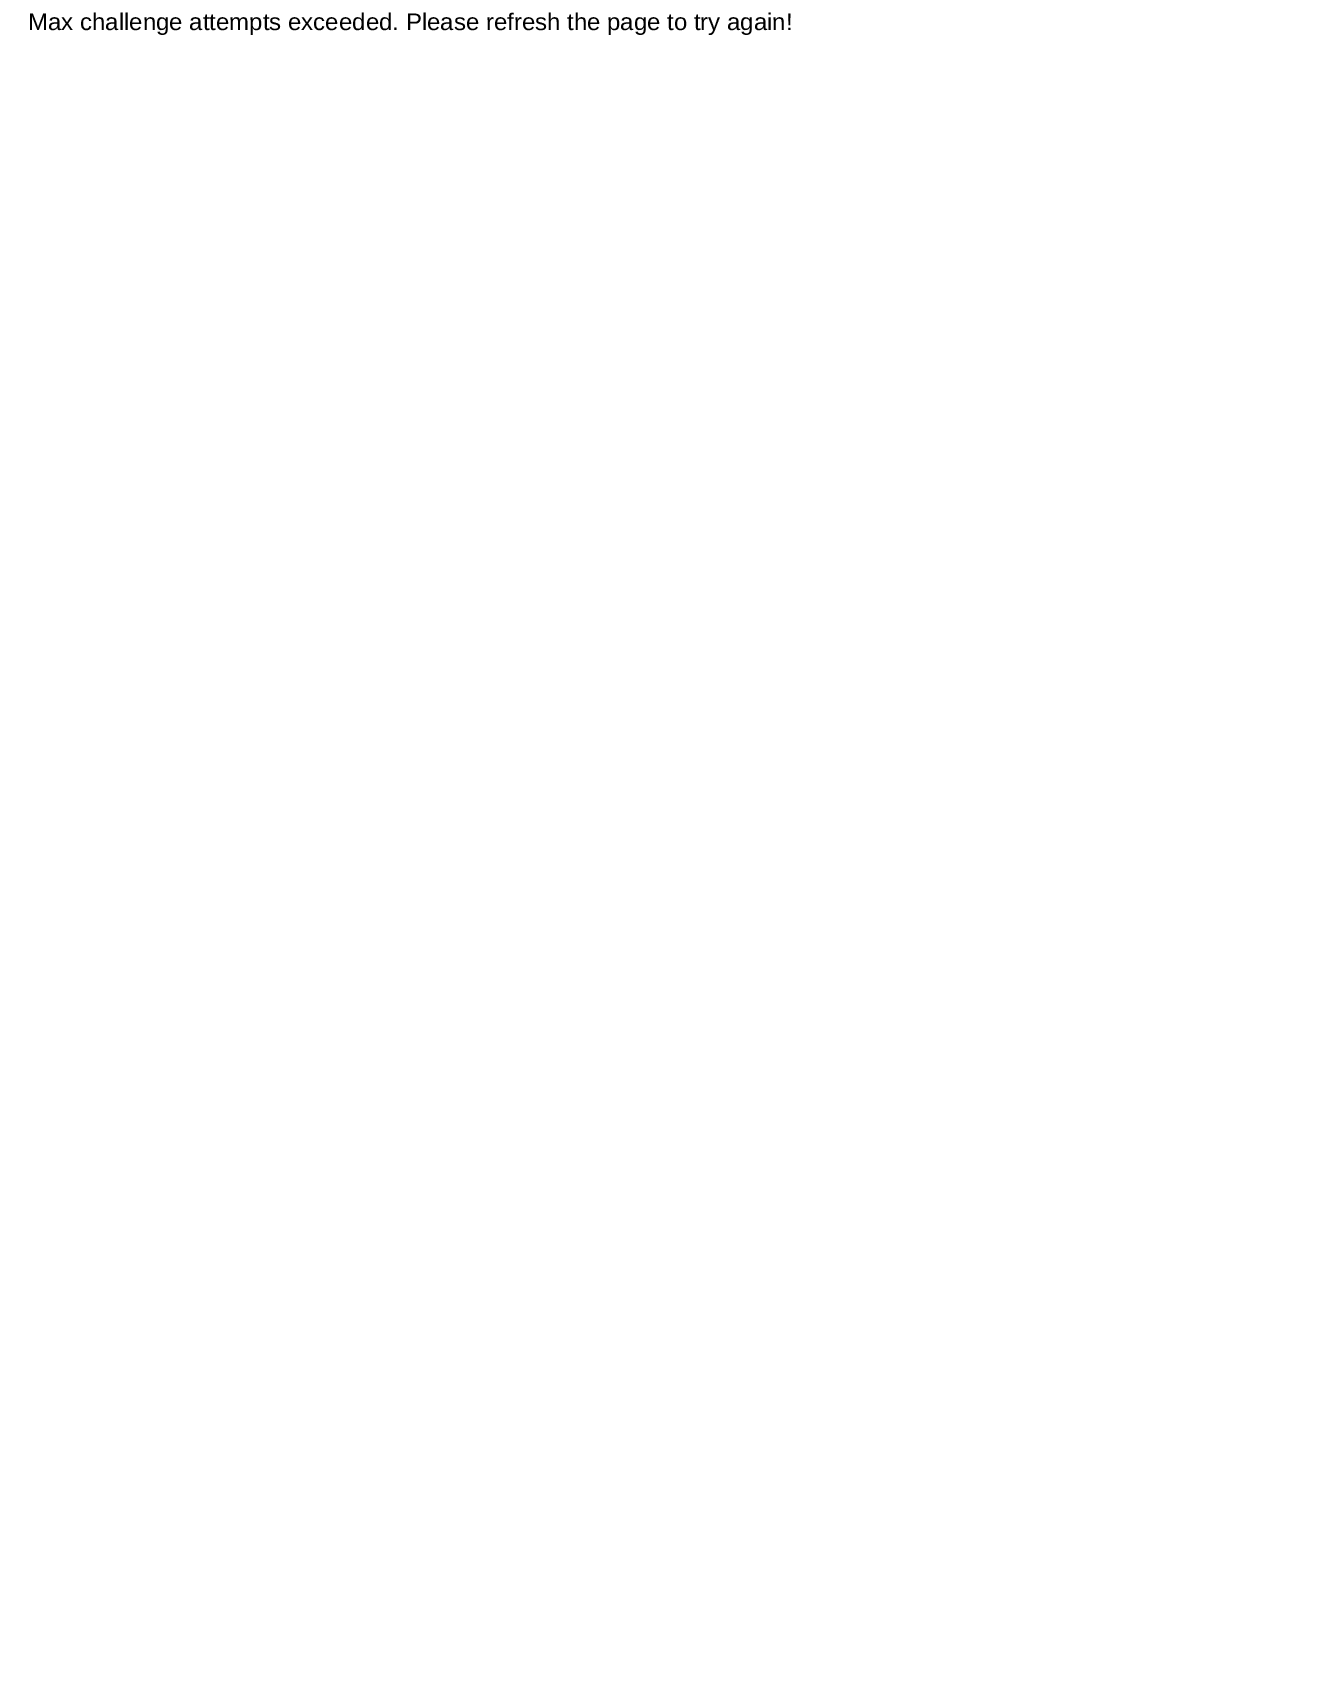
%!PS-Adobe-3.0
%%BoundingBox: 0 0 1337 1695
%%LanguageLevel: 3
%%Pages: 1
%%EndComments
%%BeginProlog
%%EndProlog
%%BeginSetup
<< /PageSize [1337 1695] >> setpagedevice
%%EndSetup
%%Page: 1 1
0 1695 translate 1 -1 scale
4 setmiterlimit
1 setgray
0 0 1337 1695 rectfill
/LiberationSans-Regular [24 0 0 -24 0 0] selectfont
0 setgray
28 30 moveto (Max challenge attempts exceeded. Please refresh the page to try again!) show
showpage
%%EOF
